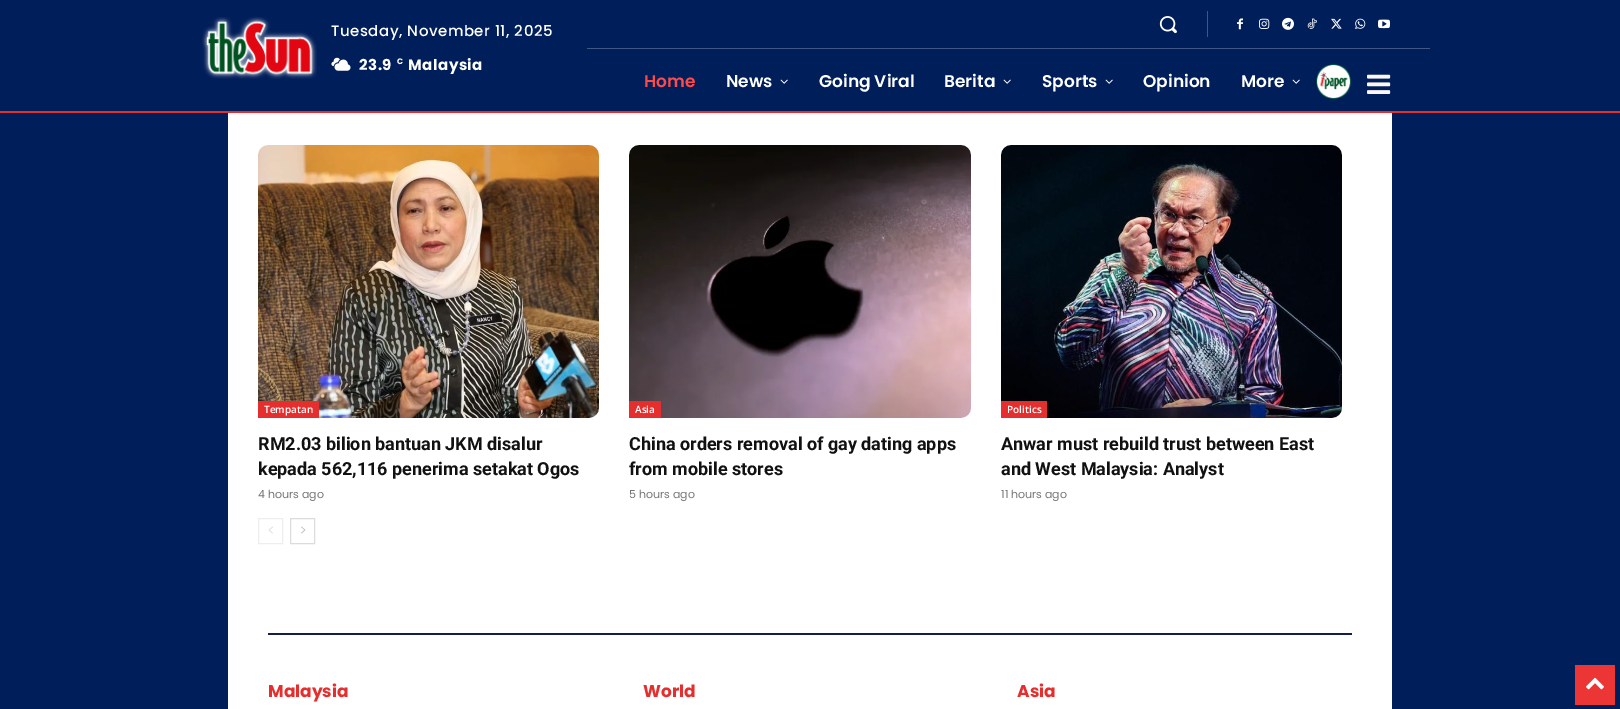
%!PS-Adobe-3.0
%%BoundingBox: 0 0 1620 709
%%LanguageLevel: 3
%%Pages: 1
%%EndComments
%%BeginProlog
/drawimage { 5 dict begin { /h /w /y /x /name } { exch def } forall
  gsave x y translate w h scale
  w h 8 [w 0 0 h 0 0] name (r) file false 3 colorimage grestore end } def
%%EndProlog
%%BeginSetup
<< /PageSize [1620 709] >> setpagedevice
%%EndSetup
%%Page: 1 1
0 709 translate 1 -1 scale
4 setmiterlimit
0 0.118 0.353 setrgbcolor
0 0 1620 709 rectfill
(images/1.raw) 202 17 115 62 drawimage
(images/2.raw) 331 57 20 14 drawimage
(images/3.raw) 1159 16 18 18 drawimage
0.251 0.337 0.514 setrgbcolor
1207 11 1 26 rectfill
(images/4.raw) 1237 18 6 12 drawimage
(images/5.raw) 1259 18 11 11 drawimage
(images/6.raw) 1282 17 12 13 drawimage
(images/7.raw) 1307 18 10 11 drawimage
(images/8.raw) 1331 18 11 11 drawimage
(images/9.raw) 1355 18 11 11 drawimage
(images/10.raw) 1378 19 12 10 drawimage
587 48 843 1 rectfill
(images/11.raw) 780 79 8 5 drawimage
(images/11.raw) 1003 79 8 5 drawimage
(images/11.raw) 1105 79 8 5 drawimage
(images/11.raw) 1292 79 8 5 drawimage
(images/12.raw) 1316 64 35 35 drawimage
(images/13.raw) 1367 74 24 20 drawimage
0.898 0.18 0.18 setrgbcolor
0 111 1620 2 rectfill
1 setgray
228 113 1164 596 rectfill
(images/14.raw) 258 145 341 273 drawimage
0.898 0.18 0.18 setrgbcolor
258 401 61 17 rectfill
(images/15.raw) 629 145 342 273 drawimage
629 401 32 17 rectfill
(images/16.raw) 1001 145 341 273 drawimage
1001 401 46 17 rectfill
0.933 setgray
258.5 518.5 24 25 rectstroke
(images/17.raw) 268 526 5 8 drawimage
0.863 setgray
290.5 518.5 24 25 rectstroke
(images/18.raw) 301 526 5 8 drawimage
0.075 0.122 0.286 setrgbcolor
268 633 1084 2 rectfill
0.925 0.208 0.208 setrgbcolor
1575 665 40 40 rectfill
(images/19.raw) 1586 677 18 13 drawimage
/Poppins-Medium [15 0 0 -15 0 0] selectfont
1 setgray
331 36 moveto 0.5 0 (Tuesday, November 11, 2025) ashow
/Poppins-Bold [15 0 0 -15 0 0] selectfont
359 70 moveto 0.5 0 (23.9) ashow
/Poppins-Bold [8 0 0 -8 0 0] selectfont
397 64 moveto 0.5 0 (C) ashow
/Poppins-Bold [15 0 0 -15 0 0] selectfont
408 70 moveto 0.5 0 (Malaysia) ashow
/Poppins-SemiBold [17 0 0 -17 0 0] selectfont
1 0.29 0.29 setrgbcolor
644 87 moveto (Home) show
1 setgray
726 87 moveto (News) show
819 87 moveto (Going Viral) show
944 87 moveto (Berita) show
1042 87 moveto (Sports) show
1143 87 moveto (Opinion) show
1241 87 moveto (More) show
/OpenSans-SemiBold [10 0 0 -10 0 0] selectfont
264 413 moveto (Tempatan) show
/Roboto-Bold [18 0 0 -18 0 0] selectfont
0.067 setgray
258 450 moveto (RM2.03 bilion bantuan JKM disalur) show
258 475 moveto (kepada 562,116 penerima setakat Ogos) show
/Poppins-Regular [11 0 0 -11 0 0] selectfont
0.463 setgray
258 498 moveto (4 hours ago) show
/OpenSans-SemiBold [10 0 0 -10 0 0] selectfont
1 setgray
635 413 moveto (Asia) show
/Roboto-Bold [18 0 0 -18 0 0] selectfont
0.067 setgray
629 450 moveto (China orders removal of gay dating apps) show
629 475 moveto (from mobile stores) show
/Poppins-Regular [11 0 0 -11 0 0] selectfont
0.463 setgray
629 498 moveto (5 hours ago) show
/OpenSans-SemiBold [10 0 0 -10 0 0] selectfont
1 setgray
1007 413 moveto (Politics) show
/Roboto-Bold [18 0 0 -18 0 0] selectfont
0.067 setgray
1001 450 moveto (Anwar must rebuild trust between East) show
1001 475 moveto (and West Malaysia: Analyst) show
/Poppins-Regular [11 0 0 -11 0 0] selectfont
0.463 setgray
1001 498 moveto (11 hours ago) show
/Poppins-Bold [17 0 0 -17 0 0] selectfont
0.898 0.18 0.18 setrgbcolor
268 697 moveto (Malaysia) show
643 697 moveto (World) show
1017 697 moveto (Asia) show
showpage
%%EOF
